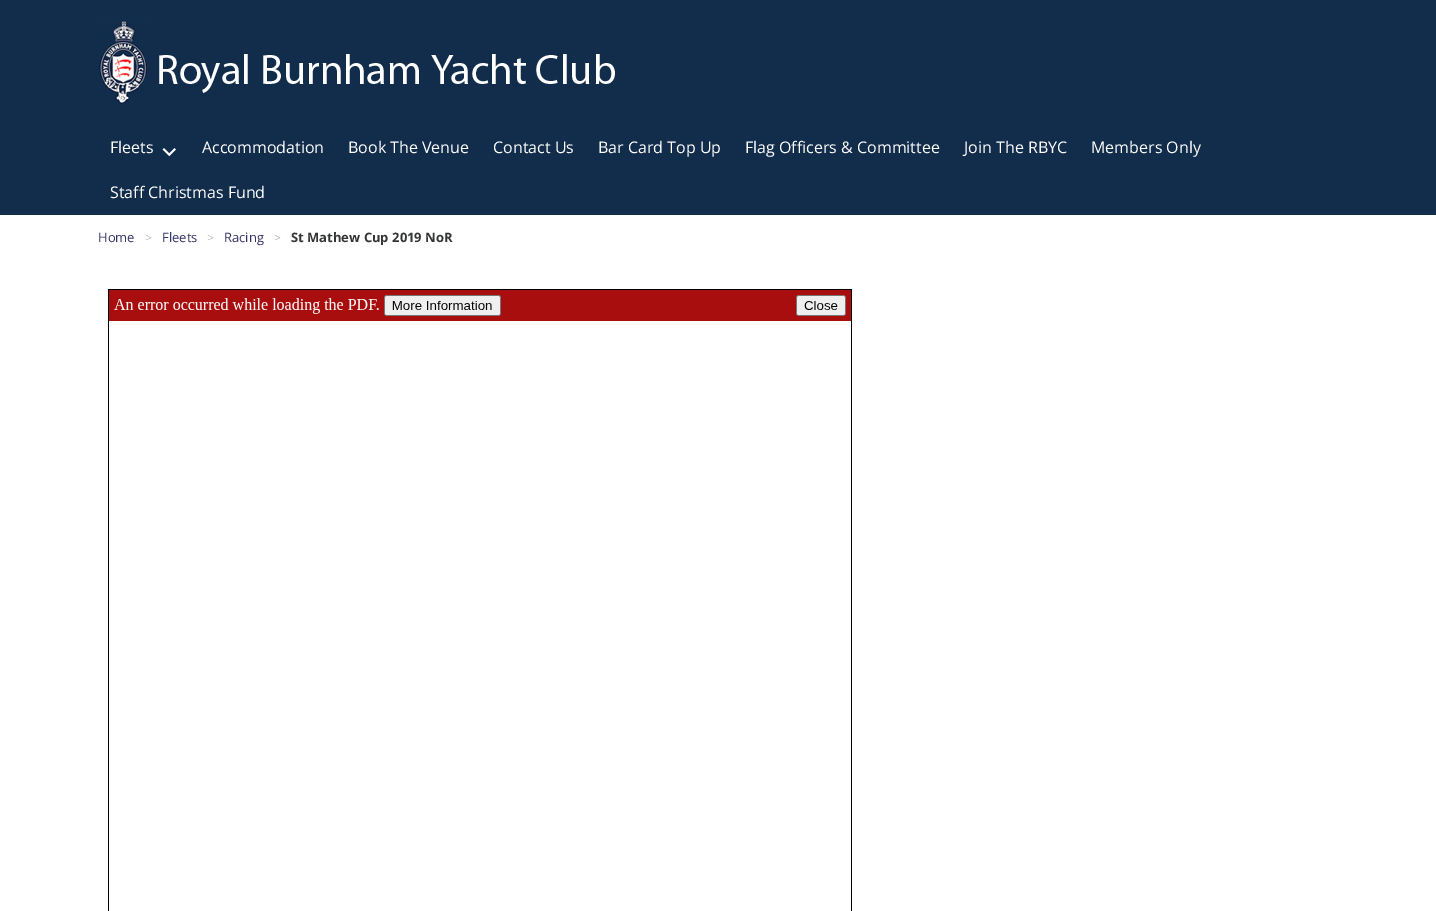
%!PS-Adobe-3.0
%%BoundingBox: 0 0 1436 911
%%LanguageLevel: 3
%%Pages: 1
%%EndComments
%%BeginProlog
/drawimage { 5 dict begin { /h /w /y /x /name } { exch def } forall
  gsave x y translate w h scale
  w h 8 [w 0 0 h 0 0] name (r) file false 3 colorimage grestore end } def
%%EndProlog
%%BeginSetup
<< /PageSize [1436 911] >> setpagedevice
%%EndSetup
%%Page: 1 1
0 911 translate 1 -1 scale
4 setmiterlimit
1 setgray
0 0 1436 911 rectfill
0.071 0.176 0.294 setrgbcolor
0 0 1436 215 rectfill
(images/1.raw) 98 20 517 85 drawimage
(images/2.raw) 162 148 14 9 drawimage
(images/3.raw) 108 289 744 622 drawimage
/OpenSans-Regular [16 0 0 -16 0 0] selectfont
1 setgray
110 153 moveto (Fleets) show
202 153 moveto (Accommodation) show
348 153 moveto (Book The Venue) show
493 153 moveto (Contact Us) show
598 153 moveto (Bar Card Top Up) show
745 153 moveto (Flag Officers & Committee) show
964 153 moveto (Join The RBYC) show
1091 153 moveto (Members Only) show
110 198 moveto (Staff Christmas Fund) show
/OpenSans-Regular [13 0 0 -13 0 0] selectfont
0.2 0.204 0.404 setrgbcolor
98 242 moveto (Home) show
/OpenSans-Light [12 0 0 -12 0 0] selectfont
0.6 setgray
145 242 moveto (>) show
/OpenSans-Regular [13 0 0 -13 0 0] selectfont
0.2 0.204 0.404 setrgbcolor
162 242 moveto (Fleets) show
/OpenSans-Light [12 0 0 -12 0 0] selectfont
0.6 setgray
207 242 moveto (>) show
/OpenSans-Regular [13 0 0 -13 0 0] selectfont
0.2 0.204 0.404 setrgbcolor
224 242 moveto (Racing) show
/OpenSans-Light [12 0 0 -12 0 0] selectfont
0.6 setgray
274 242 moveto (>) show
/OpenSans-Bold [13 0 0 -13 0 0] selectfont
0.204 0.208 0.212 setrgbcolor
291 242 moveto (St Mathew Cup 2019 NoR) show
showpage
%%EOF
